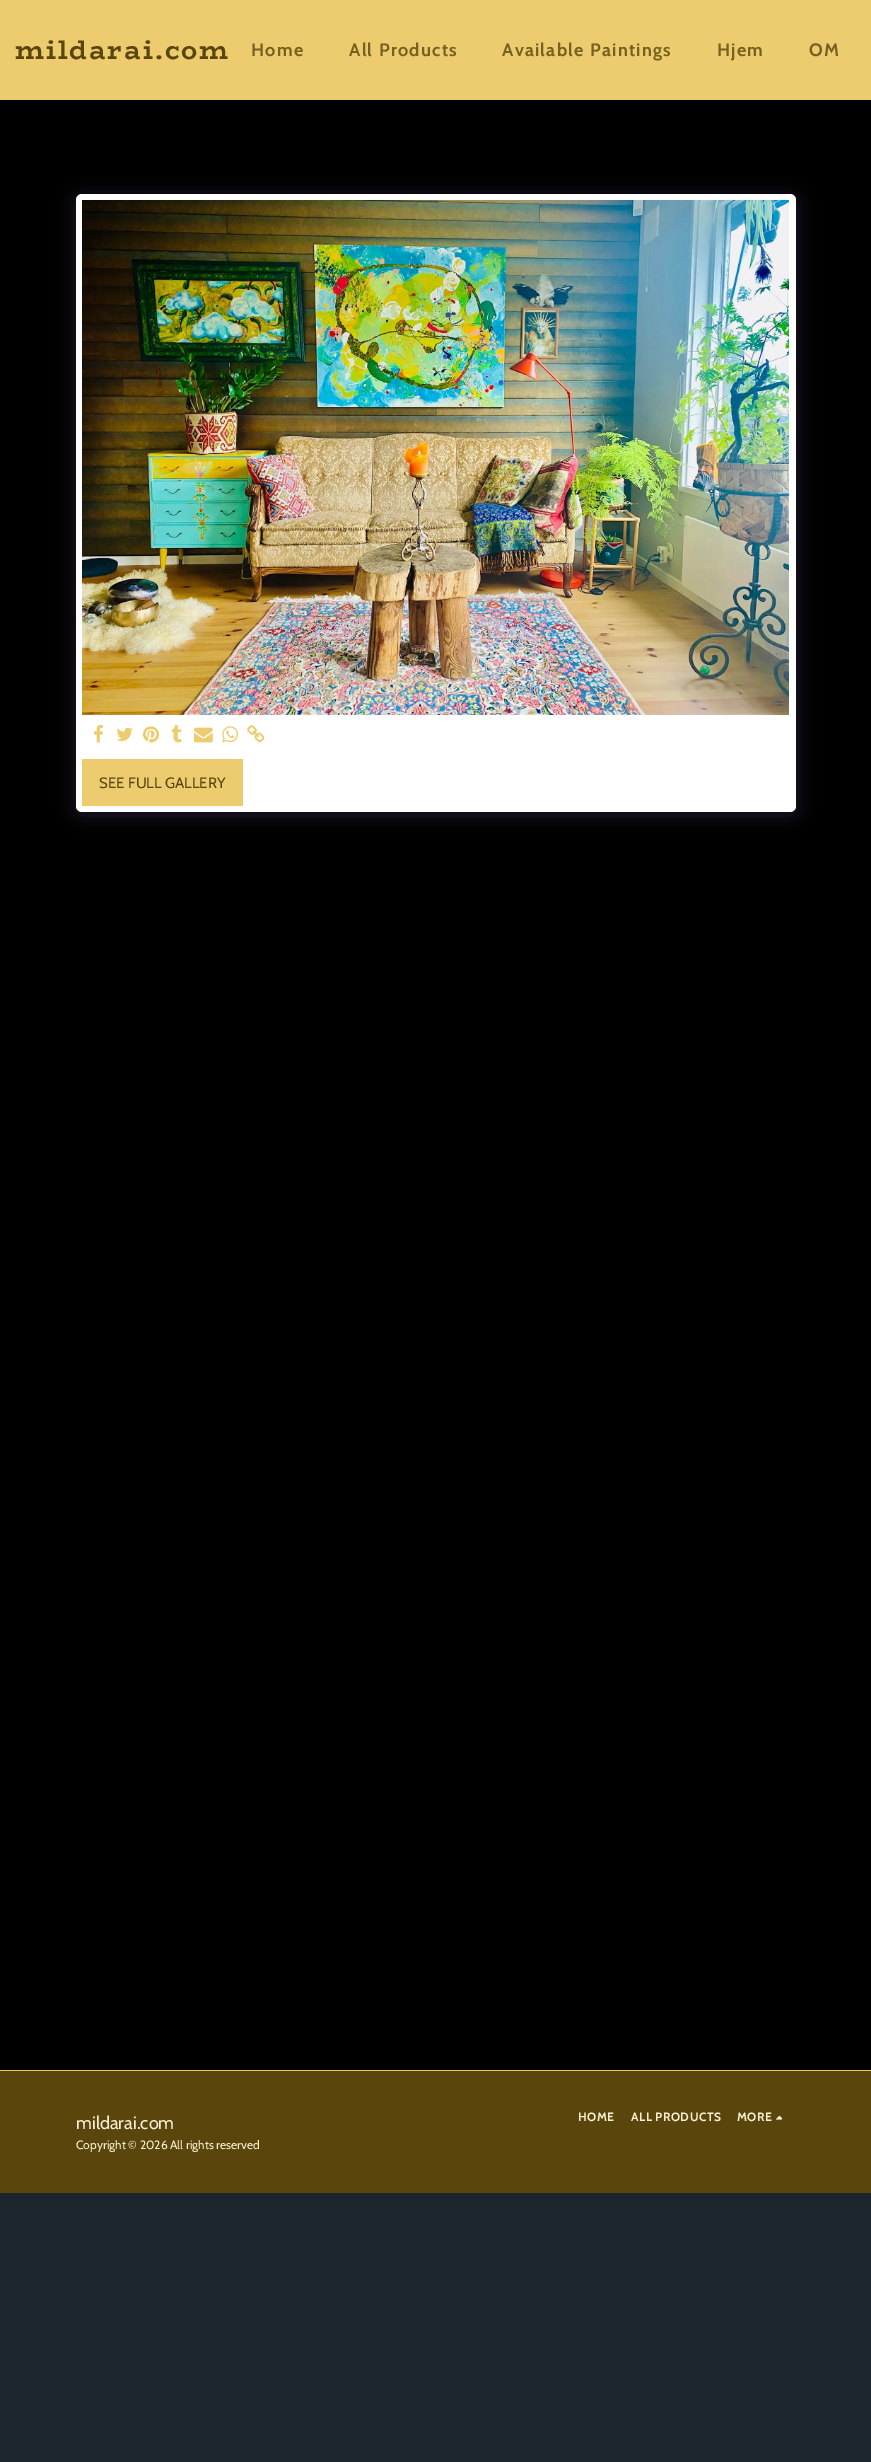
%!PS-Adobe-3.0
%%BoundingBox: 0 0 871 2462
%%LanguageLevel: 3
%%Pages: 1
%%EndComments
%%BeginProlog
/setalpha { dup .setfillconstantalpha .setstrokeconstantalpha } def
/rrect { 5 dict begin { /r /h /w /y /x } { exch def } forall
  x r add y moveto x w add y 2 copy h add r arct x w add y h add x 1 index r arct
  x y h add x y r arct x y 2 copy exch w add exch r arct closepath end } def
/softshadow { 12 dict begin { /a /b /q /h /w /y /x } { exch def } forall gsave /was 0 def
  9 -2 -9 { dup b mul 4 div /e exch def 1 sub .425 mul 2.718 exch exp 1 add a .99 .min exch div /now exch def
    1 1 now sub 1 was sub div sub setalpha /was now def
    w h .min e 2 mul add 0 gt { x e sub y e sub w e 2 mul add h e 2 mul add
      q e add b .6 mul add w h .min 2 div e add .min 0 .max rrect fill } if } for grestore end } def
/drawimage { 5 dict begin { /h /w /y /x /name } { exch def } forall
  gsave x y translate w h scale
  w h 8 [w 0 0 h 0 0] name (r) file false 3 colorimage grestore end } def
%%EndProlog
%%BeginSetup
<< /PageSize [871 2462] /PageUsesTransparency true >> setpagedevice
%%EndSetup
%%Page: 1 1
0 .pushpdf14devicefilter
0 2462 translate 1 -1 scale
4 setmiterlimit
0.106 0.149 0.173 setrgbcolor
0 0 871 2462 rectfill
0.925 0.8 0.431 setrgbcolor
0 0 871 100 rectfill
0 setgray
0 100 871 1970 rectfill
0.302 0.247 0.478 setrgbcolor
76 197 720 618 6 10 0.4 softshadow
1 setgray
76 194 720 618 6 rrect fill
(images/1.raw) 82 200 707 515 drawimage
(images/2.raw) 94 725 9 18 drawimage
(images/3.raw) 116 727 17 15 drawimage
(images/4.raw) 143 726 16 17 drawimage
(images/5.raw) 171 725 11 18 drawimage
(images/6.raw) 194 727 19 16 drawimage
(images/7.raw) 222 726 16 17 drawimage
(images/8.raw) 247 725 18 18 drawimage
0.925 0.8 0.431 setrgbcolor
82 759 161 47 rectfill
0.353 0.275 0.047 setrgbcolor
0 2071 871 122 rectfill
0.925 0.8 0.431 setrgbcolor
0 2070 871 1 rectfill
(images/9.raw) 776 2115 6 5 drawimage
/BioRhyme-Bold [27 0 0 -27 0 0] selectfont
0.353 0.275 0.047 setrgbcolor
15 59 moveto 2 0 (mildarai.com) ashow
/Cabin-Bold [18 0 0 -18 0 0] selectfont
0.467 0.38 0.125 setrgbcolor
251 56 moveto 1.25 0 (Home) ashow
349 56 moveto 1.25 0 (All Products) ashow
502 56 moveto 1.25 0 (Available Paintings) ashow
717 56 moveto 1.25 0 (Hjem) ashow
809 56 moveto 1.25 0 (OM) ashow
/Cabin-Regular [15 0 0 -15 0 0] selectfont
0.353 0.275 0.047 setrgbcolor
99 788 moveto (SEE FULL GALLERY) show
/Cabin-Regular [18 0 0 -18 0 0] selectfont
0.976 0.937 0.824 setrgbcolor
76 2129 moveto (mildarai.com) show
/Cabin-Regular [12 0 0 -12 0 0] selectfont
76 2149 moveto (Copyright © 2026 All rights reserved) show
/Cabin-Bold [12 0 0 -12 0 0] selectfont
578 2121 moveto 0.5 0 (HOME) ashow
631 2121 moveto 0.5 0 (ALL PRODUCTS) ashow
737 2121 moveto 0.5 0 (MORE) ashow
.poppdf14devicefilter showpage
%%EOF
